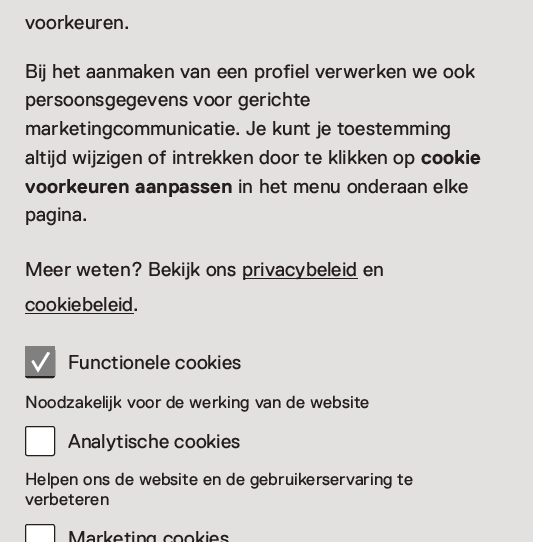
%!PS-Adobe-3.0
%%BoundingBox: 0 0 533 542
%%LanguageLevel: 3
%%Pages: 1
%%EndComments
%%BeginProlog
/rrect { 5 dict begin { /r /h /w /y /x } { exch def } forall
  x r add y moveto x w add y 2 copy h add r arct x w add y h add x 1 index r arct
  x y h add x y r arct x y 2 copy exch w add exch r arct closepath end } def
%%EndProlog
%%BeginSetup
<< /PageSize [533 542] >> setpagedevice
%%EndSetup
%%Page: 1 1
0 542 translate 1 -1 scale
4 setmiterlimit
0.89 0.882 0.878 setrgbcolor
0 0 533 542 rectfill
0.141 0.122 0.11 setrgbcolor
243 278 115 1 rectfill
25 313 109 1 rectfill
25.5 348.5 29 29 2 rrect gsave fill grestore
stroke
0.502 setgray
25 346 30 30 rectfill
1 setgray
newpath 38 372.5 moveto 31.5 361.5 lineto 33.5 360 lineto 38 367.5 lineto 47.5 352 lineto 50 353 lineto closepath fill
25.5 426.5 29 29 2 rrect gsave fill grestore
0.141 0.122 0.11 setrgbcolor
stroke
1 setgray
newpath 27.5 524 moveto 52.5 524 lineto 54 524 55 525 55 526.5 curveto 55 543 lineto 25 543 lineto 25 526.5 lineto 25 525 26 524 27.5 524 curveto closepath fill
0.141 0.122 0.11 setrgbcolor
25.5 524.5 29 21 2 rrect stroke
/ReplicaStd-Regular [20 0 0 -20 0 0] selectfont
25 29 moveto (voorkeuren.) show
25 78 moveto 0.25 0 32 (Bij het aanmaken van een profiel verwerken we ook) widthshow
25 106 moveto 0.25 0 32 (persoonsgegevens voor gerichte) widthshow
25 135 moveto 0.25 0 32 (marketingcommunicatie. Je kunt je toestemming) widthshow
25 164 moveto 0.25 0 32 (altijd wijzigen of intrekken door te klikken op) widthshow
/ReplicaStd-Bold [20 0 0 -20 0 0] selectfont
421 164 moveto (cookie) show
25 193 moveto 0.25 0 32 (voorkeuren aanpassen) widthshow
/ReplicaStd-Regular [20 0 0 -20 0 0] selectfont
238 193 moveto 0.25 0 32 (in het menu onderaan elke) widthshow
25 221 moveto (pagina.) show
25 276 moveto 0.25 0 32 (Meer weten? Bekijk ons) widthshow
242 276 moveto (privacybeleid) show
363 276 moveto (en) show
25 311 moveto (cookiebeleid.) show
68 369 moveto 0.25 0 32 (Functionele cookies) widthshow
/ReplicaStd-Regular [17.5 0 0 -17.5 0 0] selectfont
25 408 moveto 0.25 0 32 (Noodzakelijk voor de werking van de website) widthshow
/ReplicaStd-Regular [20 0 0 -20 0 0] selectfont
68 448 moveto 0.25 0 32 (Analytische cookies) widthshow
/ReplicaStd-Regular [17.5 0 0 -17.5 0 0] selectfont
25 485 moveto 0.25 0 32 (Helpen ons de website en de gebruikerservaring te) widthshow
25 505 moveto (verbeteren) show
/ReplicaStd-Regular [20 0 0 -20 0 0] selectfont
68 545 moveto 0.25 0 32 (Marketing cookies) widthshow
showpage
%%EOF
